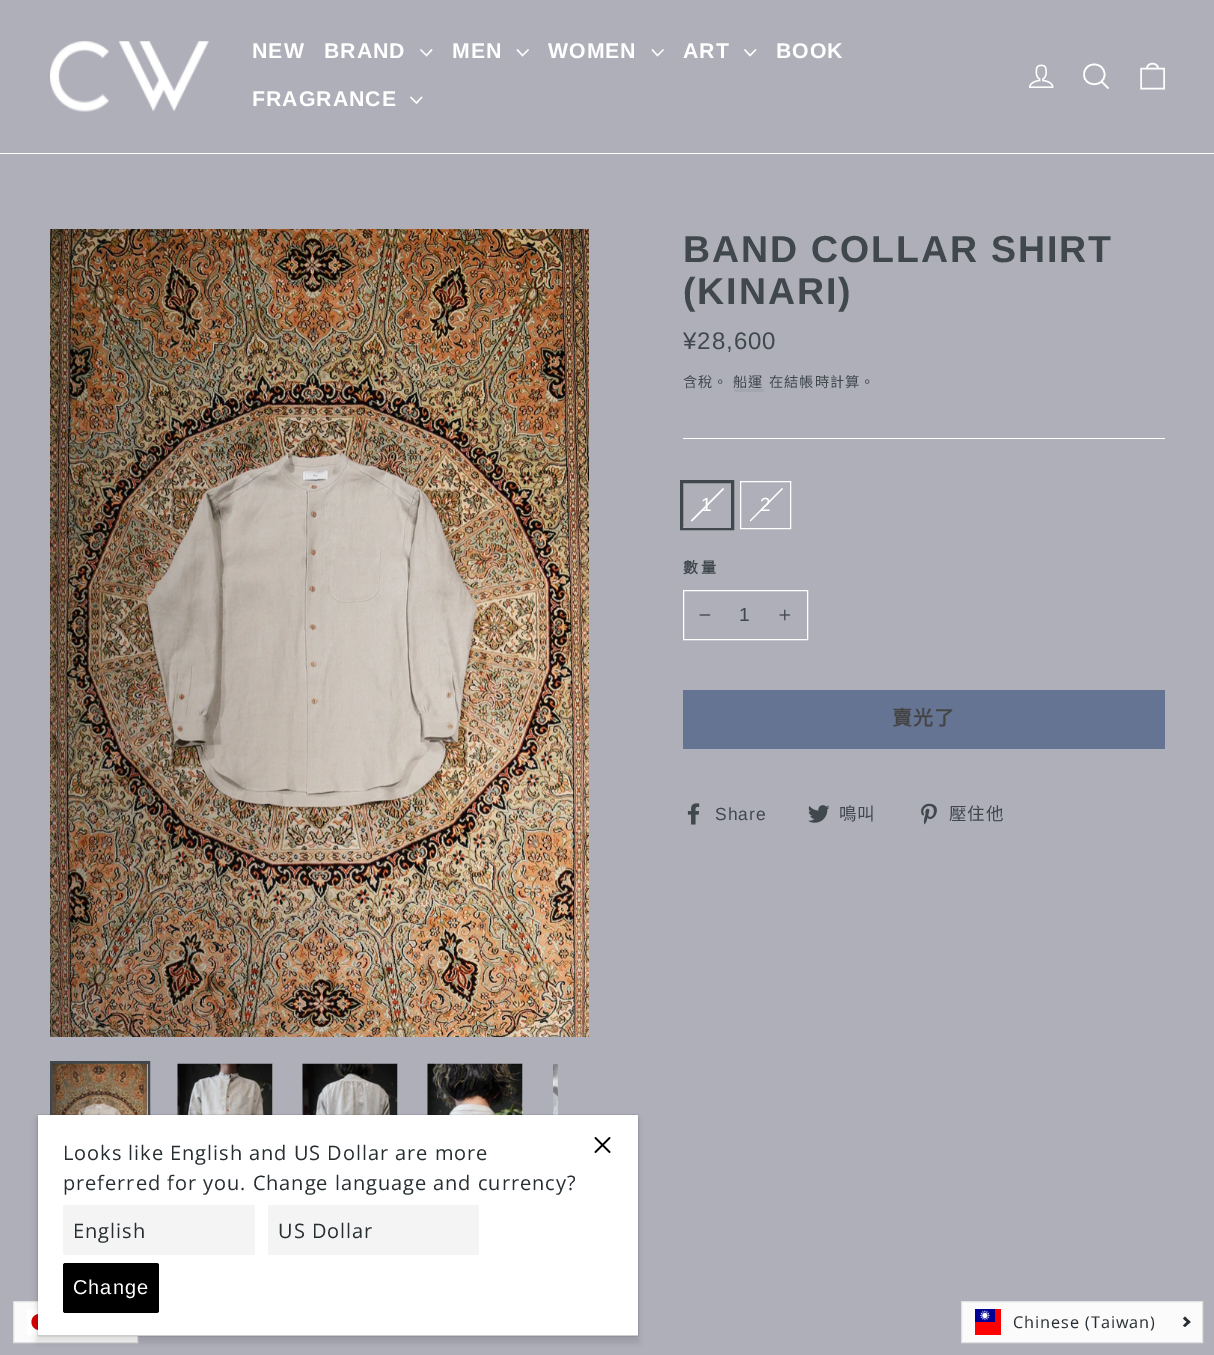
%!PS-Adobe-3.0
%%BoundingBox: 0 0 1214 1355
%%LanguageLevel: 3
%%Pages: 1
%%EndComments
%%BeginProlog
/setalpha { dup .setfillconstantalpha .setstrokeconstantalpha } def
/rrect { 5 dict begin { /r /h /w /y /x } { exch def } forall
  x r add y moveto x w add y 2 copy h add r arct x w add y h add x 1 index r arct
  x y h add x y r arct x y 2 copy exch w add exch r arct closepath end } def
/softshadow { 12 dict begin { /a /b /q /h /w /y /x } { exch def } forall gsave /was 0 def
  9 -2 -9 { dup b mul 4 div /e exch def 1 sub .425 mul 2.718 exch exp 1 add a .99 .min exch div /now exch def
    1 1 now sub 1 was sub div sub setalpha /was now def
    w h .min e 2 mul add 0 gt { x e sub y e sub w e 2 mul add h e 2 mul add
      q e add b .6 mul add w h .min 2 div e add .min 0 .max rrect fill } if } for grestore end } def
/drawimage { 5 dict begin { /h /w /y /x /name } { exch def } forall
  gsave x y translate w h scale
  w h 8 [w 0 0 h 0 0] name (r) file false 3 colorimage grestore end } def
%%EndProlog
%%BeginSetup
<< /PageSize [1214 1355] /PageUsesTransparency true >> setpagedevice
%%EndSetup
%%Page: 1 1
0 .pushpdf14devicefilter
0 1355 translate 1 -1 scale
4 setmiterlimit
0.686 0.686 0.729 setrgbcolor
0 0 1214 1355 rectfill
1 setgray
0 153 1214 1 rectfill
(images/1.raw) 50 41 159 71 drawimage
1.3 setlinewidth
newpath 420.5 49.5 moveto 426.5 55.5 lineto 432 49.5 lineto stroke
newpath 517 49.5 moveto 522.5 55.5 lineto 528.5 49.5 lineto stroke
newpath 652 49.5 moveto 657.5 55.5 lineto 663.5 49.5 lineto stroke
newpath 744.5 49.5 moveto 750 55.5 lineto 756 49.5 lineto stroke
newpath 410.5 97 moveto 416.5 103 lineto 422 97 lineto stroke
(images/2.raw) 1029 64 25 24 drawimage
1.6 setlinewidth
newpath 1104.5 74.5 moveto 1104.5 87.5 1084 87.5 1084 74.5 curveto 1084 61 1104.5 61 1104.5 74.5 curveto closepath 1108.5 88.5 moveto 1101.5 81.5 lineto stroke
newpath 1141 68.5 moveto 1164 68.5 lineto 1164 88.5 lineto 1141 88.5 lineto closepath 1147 68.5 moveto 1147 62 1158 62 1158 68.5 curveto stroke
(images/3.raw) 50 229 539 808 drawimage
0.251 0.282 0.306 setrgbcolor
3 setlinewidth
51.5 1062.5 97 145 rectstroke
1 setgray
147 1064 1 51 rectfill
(images/4.raw) 52 1063 96 52 drawimage
272 1064 1 51 rectfill
(images/5.raw) 177 1063 96 52 drawimage
397 1064 1 51 rectfill
(images/6.raw) 302 1063 96 52 drawimage
522 1064 1 51 rectfill
(images/7.raw) 427 1063 96 52 drawimage
(images/8.raw) 553 1064 5 51 drawimage
0.643 0.647 0.686 setrgbcolor
734 389 30 3 rectfill
1 setgray
683 438 482 1 rectfill
0.251 0.282 0.306 setrgbcolor
681.5 481.5 51 47 rectstroke
0.686 0.686 0.729 setrgbcolor
683 527 48 1 rectfill
1 setgray
newpath 723 488 moveto 724 489 lineto 692 521.5 lineto 691 520.5 lineto closepath fill
1 setlinewidth
740.5 481.5 50 47 rectstroke
newpath 782 488 moveto 783 489 lineto 750.5 521.5 lineto 750 520.5 lineto closepath fill
683.5 590.5 124 49 rectstroke
(images/9.raw) 699 614 12 2 drawimage
(images/10.raw) 779 609 12 12 drawimage
0.4 0.455 0.576 setrgbcolor
683 690 482 59 rectfill
(images/11.raw) 687 803 13 22 drawimage
(images/12.raw) 808 805 22 18 drawimage
(images/13.raw) 921 803 16 22 drawimage
0.95 setalpha
1 setgray
newpath 13.5 1301.5 moveto 137.5 1301.5 lineto 137.5 1342.5 lineto 13.5 1342.5 lineto closepath fill
1 setalpha
0.878 setgray
newpath 13.5 1301.5 moveto 137.5 1301.5 lineto 137.5 1342.5 lineto 13.5 1342.5 lineto closepath stroke
1 setgray
27 1309 11 26 rectfill
0.827 0 0 setrgbcolor
newpath 39.5 1322 8 0 360 arc closepath fill
0 setgray
36 1119 603 224 0 2.5 0.1 softshadow
38 1115 600 221 0 0.5 0.3 softshadow
1 setgray
38 1115 600 220 rectfill
0.8 setgray
38 1335 600 1 rectfill
0.957 setgray
63 1205 192 50 2.5 rrect fill
268 1205 211 50 2.5 rrect fill
0 setgray
63 1263 96 50 2.5 rrect fill
(images/14.raw) 594 1137 17 16 drawimage
0.984 0.984 0.988 setrgbcolor
newpath 961.5 1301.5 moveto 1202.5 1301.5 lineto 1202.5 1342.5 lineto 961.5 1342.5 lineto closepath gsave fill grestore
0.878 setgray
stroke
(images/15.raw) 975 1309 26 26 drawimage
0.153 0.18 0.192 setrgbcolor
newpath 1185 1316.5 moveto 1190.5 1322 lineto 1188.5 1323.5 lineto 1183 1318.5 lineto closepath fill
newpath 1188.5 1320 moveto 1190.5 1322 lineto 1185 1327 lineto 1183 1325.5 lineto closepath fill
/LiberationSans-Bold [21.25 0 0 -21.25 0 0] selectfont
1 setgray
252 58 moveto 1 0 (NEW) ashow
324 58 moveto 1 0 (BRAND) ashow
452 58 moveto 1 0 (MEN) ashow
548 58 moveto 1 0 (WOMEN) ashow
683 58 moveto 1 0 (ART) ashow
776 58 moveto 1 0 (BOOK) ashow
252 106 moveto 1 0 (FRAGRANCE) ashow
/LiberationSans-Bold [37.5 0 0 -37.5 0 0] selectfont
0.251 0.282 0.306 setrgbcolor
683 262 moveto 1.9 0 (BAND COLLAR SHIRT) ashow
683 304 moveto 1.9 0 (\(KINARI\)) ashow
/LiberationSans-Regular [24 0 0 -24 0 0] selectfont
683 349 moveto 0.95 0 (¥28,600) ashow
/NotoSansCJKTC-Regular [14.25 0 0 -14.25 0 0] selectfont
683 387 moveto 0.95 0 (含稅。) ashow
733 387 moveto 0.95 0 (船運) ashow
769 387 moveto 0.95 0 (在結帳時計算。) ashow
/LiberationSans-Regular [19 0 0 -19 0 0] selectfont
1 setgray
701 511 moveto 0.95 0 (1) ashow
760 511 moveto 0.95 0 (2) ashow
/NotoSansCJKTC-Bold [15 0 0 -15 0 0] selectfont
0.251 0.282 0.306 setrgbcolor
683 573 moveto 3 0 (數量) ashow
/LiberationSans-Regular [19 0 0 -19 0 0] selectfont
739 621 moveto 0.95 0 (1) ashow
/NotoSansCJKTC-Bold [20 0 0 -20 0 0] selectfont
0.267 setgray
892 725 moveto 1 0 (賣光了) ashow
/LiberationSans-Regular [17.5 0 0 -17.5 0 0] selectfont
0.251 0.282 0.306 setrgbcolor
715 820 moveto 0.95 0 (Share) ashow
/NotoSansCJKTC-Regular [17.5 0 0 -17.5 0 0] selectfont
839 820 moveto 0.95 0 (鳴叫) ashow
949 820 moveto 0.95 0 (壓住他) ashow
/OpenSans-Regular [20 0 0 -20 0 0] selectfont
0.153 0.18 0.192 setrgbcolor
63 1160 moveto 0.95 0 (Looks like English and US Dollar are more) ashow
63 1190 moveto 0.95 0 (preferred for you. Change language and currency?) ashow
73 1238 moveto 0.95 0 (English) ashow
278 1238 moveto 0.95 0 (US Dollar) ashow
/LiberationSans-Regular [20 0 0 -20 0 0] selectfont
1 setgray
73 1294 moveto 0.95 0 (Change) ashow
/OpenSans-Regular [16.25 0 0 -16.25 0 0] selectfont
0.153 0.18 0.192 setrgbcolor
1013 1328 moveto 0.95 0 (Chinese \(Taiwan\)) ashow
.poppdf14devicefilter showpage
%%EOF
